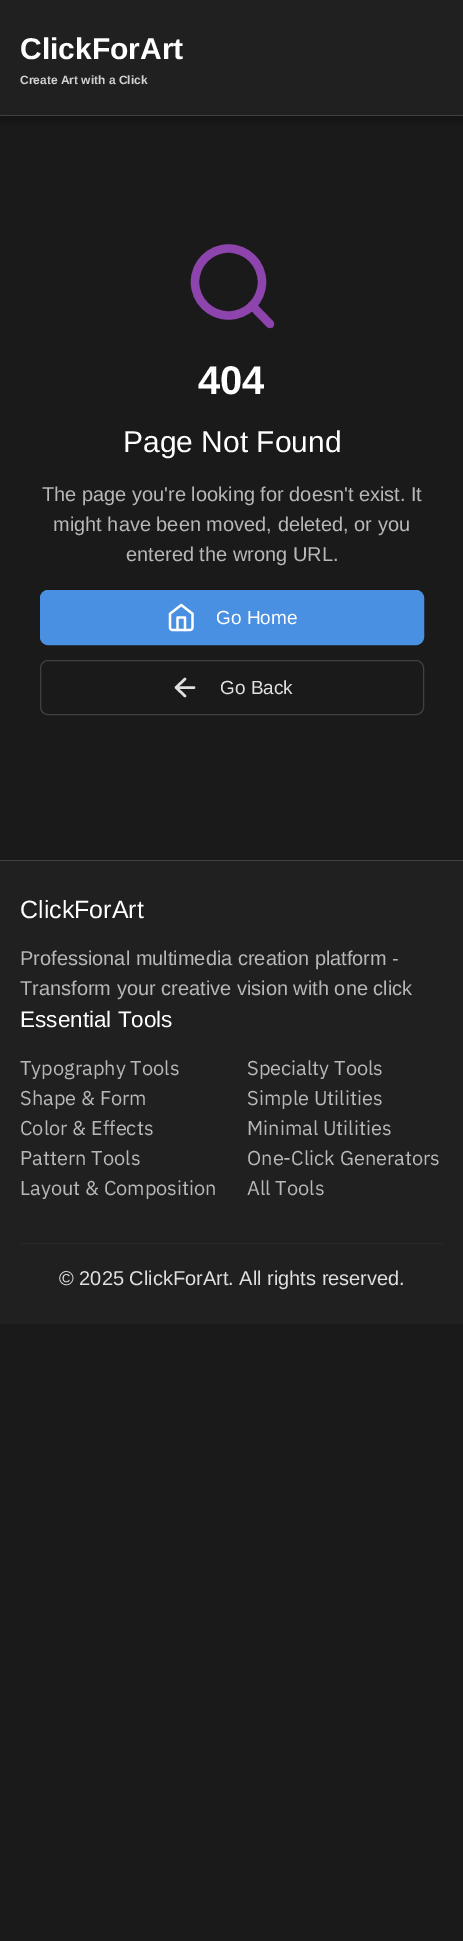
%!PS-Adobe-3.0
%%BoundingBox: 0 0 463 1941
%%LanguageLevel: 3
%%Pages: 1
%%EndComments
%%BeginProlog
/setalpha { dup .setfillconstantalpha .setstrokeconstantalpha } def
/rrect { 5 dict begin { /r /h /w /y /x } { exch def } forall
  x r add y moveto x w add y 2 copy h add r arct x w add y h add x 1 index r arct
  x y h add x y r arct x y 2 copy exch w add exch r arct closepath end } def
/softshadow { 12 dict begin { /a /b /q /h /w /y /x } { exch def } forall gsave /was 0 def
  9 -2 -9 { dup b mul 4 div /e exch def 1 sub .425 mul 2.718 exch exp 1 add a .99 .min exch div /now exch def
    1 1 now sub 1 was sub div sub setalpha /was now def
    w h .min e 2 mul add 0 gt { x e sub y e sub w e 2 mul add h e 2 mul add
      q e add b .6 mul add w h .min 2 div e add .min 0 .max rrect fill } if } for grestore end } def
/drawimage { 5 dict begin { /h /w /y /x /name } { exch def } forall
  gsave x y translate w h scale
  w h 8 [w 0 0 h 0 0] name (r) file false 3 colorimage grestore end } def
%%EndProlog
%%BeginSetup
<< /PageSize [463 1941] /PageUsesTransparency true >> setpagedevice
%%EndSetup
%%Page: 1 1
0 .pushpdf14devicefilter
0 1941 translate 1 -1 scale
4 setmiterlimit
0.102 setgray
0 0 463 1941 rectfill
0 setgray
0 3 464 116 0 7.5 0.4 softshadow
0.125 setgray
0 0 463 115 rectfill
0.251 setgray
0 115 463 1 rectfill
0.557 0.267 0.678 setrgbcolor
8.3 setlinewidth
newpath 228.5 282 33.5 0 360 arc closepath stroke
1 setlinecap
1 setlinejoin
newpath 270 324 moveto 252 305.5 lineto stroke
0.29 0.565 0.886 setrgbcolor
40.5 590.5 383 54 7.5 rrect gsave fill grestore
1 setlinewidth
0 setlinecap
0 setlinejoin
stroke
(images/1.raw) 168 603 26 29 drawimage
0.251 setgray
40.5 660.5 383 54 7.5 rrect stroke
0.878 setgray
2.5 setlinewidth
1 setlinecap
1 setlinejoin
newpath 194 687.5 moveto 176 687.5 lineto 185 696 moveto 176 687.5 lineto 185 679 lineto stroke
0.125 setgray
0 861 463 463 rectfill
0.251 setgray
0 860 463 1 rectfill
0.157 setgray
20 1243 424 1 rectfill
/LiberationSans-Bold [30 0 0 -30 0 0] selectfont
1 setgray
20 59 moveto (ClickForArt) show
/LiberationSans-Bold [12 0 0 -12 0 0] selectfont
0.824 setgray
20 84 moveto (Create Art with a Click) show
/LiberationSans-Bold [40 0 0 -40 0 0] selectfont
1 setgray
198 394 moveto (404) show
/LiberationSans-Regular [30 0 0 -30 0 0] selectfont
123 452 moveto (Page Not Found) show
/LiberationSans-Regular [20 0 0 -20 0 0] selectfont
0.722 setgray
42 501 moveto (The page you're looking for doesn't exist. It) show
53 531 moveto (might have been moved, deleted, or you) show
126 561 moveto (entered the wrong URL.) show
/LiberationSans-Regular [19 0 0 -19 0 0] selectfont
1 setgray
216 624 moveto (Go Home) show
0.878 setgray
220 694 moveto (Go Back) show
/LiberationSans-Regular [25 0 0 -25 0 0] selectfont
1 setgray
20 918 moveto (ClickForArt) show
/LiberationSans-Regular [20 0 0 -20 0 0] selectfont
0.722 setgray
20 965 moveto (Professional multimedia creation platform -) show
20 995 moveto (Transform your creative vision with one click) show
/LiberationSans-Regular [22.5 0 0 -22.5 0 0] selectfont
1 setgray
20 1027 moveto (Essential Tools) show
/IBMPlexSans-Regular [20 0 0 -20 0 0] selectfont
0.722 setgray
20 1075 moveto (Typography Tools) show
20 1105 moveto (Shape & Form) show
20 1135 moveto (Color & Effects) show
20 1165 moveto (Pattern Tools) show
20 1195 moveto (Layout & Composition) show
247 1075 moveto (Specialty Tools) show
247 1105 moveto (Simple Utilities) show
247 1135 moveto (Minimal Utilities) show
247 1165 moveto (One-Click Generators) show
247 1195 moveto (All Tools) show
/LiberationSans-Regular [20 0 0 -20 0 0] selectfont
0.878 setgray
59 1285 moveto (© 2025 ClickForArt. All rights reserved.) show
.poppdf14devicefilter showpage
%%EOF
